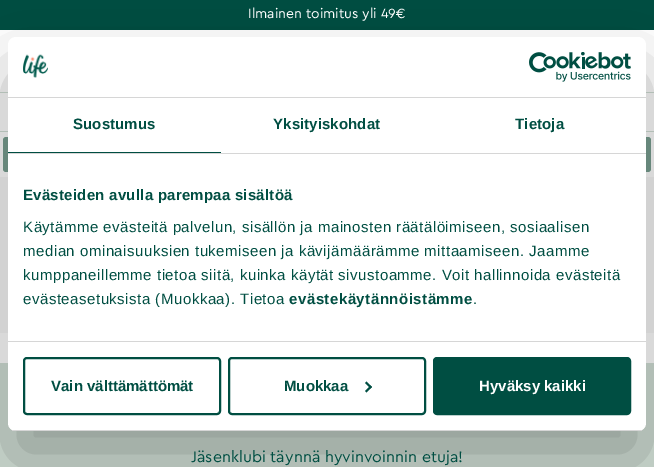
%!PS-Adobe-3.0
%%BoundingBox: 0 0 654 467
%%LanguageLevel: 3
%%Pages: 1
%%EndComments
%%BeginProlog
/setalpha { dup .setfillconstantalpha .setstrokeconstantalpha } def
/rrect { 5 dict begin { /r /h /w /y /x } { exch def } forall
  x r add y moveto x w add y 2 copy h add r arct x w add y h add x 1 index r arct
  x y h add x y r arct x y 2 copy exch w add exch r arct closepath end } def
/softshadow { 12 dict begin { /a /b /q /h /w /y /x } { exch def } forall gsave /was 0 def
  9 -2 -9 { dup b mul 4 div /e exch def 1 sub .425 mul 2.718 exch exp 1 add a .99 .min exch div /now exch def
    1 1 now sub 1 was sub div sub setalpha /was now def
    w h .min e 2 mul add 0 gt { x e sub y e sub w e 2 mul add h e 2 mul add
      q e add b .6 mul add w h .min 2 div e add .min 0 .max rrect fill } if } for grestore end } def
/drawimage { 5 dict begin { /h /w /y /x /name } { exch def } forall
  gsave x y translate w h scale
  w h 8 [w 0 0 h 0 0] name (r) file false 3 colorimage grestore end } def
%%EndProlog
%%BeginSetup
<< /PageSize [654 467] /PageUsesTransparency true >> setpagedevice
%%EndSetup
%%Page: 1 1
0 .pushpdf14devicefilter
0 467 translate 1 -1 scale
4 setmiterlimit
1 setgray
0 0 654 467 rectfill
0 0.306 0.259 setrgbcolor
0 0 654 30 rectfill
0.82 0.878 0.843 setrgbcolor
0 92 654 1 rectfill
0 131 654 1 rectfill
0.471 0.624 0.565 setrgbcolor
3 137 648 35 3 rrect fill
0.969 setgray
0 177 654 156 rectfill
0.82 0.878 0.843 setrgbcolor
0 363 654 104 rectfill
0 setgray
8 69 638 394 8 34 0.3 softshadow
1 setgray
8 37 638 394 8 rrect fill
0.839 setgray
8 97 638 1 rectfill
(images/1.raw) 23 54 25 24 drawimage
(images/2.raw) 529 52 102 30 drawimage
8 153 638 1 rectfill
0 0.306 0.259 setrgbcolor
8 152 213 1 rectfill
0.839 setgray
8 341 638 1 rectfill
gsave
8 37 638 394 8 rrect clip newpath
8 430 638 1 rectfill
grestore
0 0.306 0.259 setrgbcolor
2 setlinewidth
24 358 196 56 3 rrect stroke
229 358 196 56 3 rrect stroke
newpath 366.5 381.5 moveto 372 387 lineto 370.5 388.5 lineto 365 383 lineto closepath fill
newpath 370.5 385.5 moveto 372 387 lineto 366.5 392.5 lineto 365 391 lineto closepath fill
434 358 196 56 3 rrect gsave fill grestore
stroke
/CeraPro-Regular [14 0 0 -14 0 0] selectfont
1 setgray
248 18 moveto (Ilmainen toimitus yli 49€) show
/CeraPro-Regular [16 0 0 -16 0 0] selectfont
0 0.306 0.259 setrgbcolor
191 462 moveto (Jäsenklubi täynnä hyvinvoinnin etuja!) show
/LiberationSans-Bold [15 0 0 -15 0 0] selectfont
73 129 moveto 0.1 0 (Suostumus) ashow
273 129 moveto 0.1 0 (Yksityiskohdat) ashow
515 129 moveto 0.1 0 (Tietoja) ashow
23 200 moveto 0.25 0 (Evästeiden avulla parempaa sisältöä) ashow
/LiberationSans-Regular [15 0 0 -15 0 0] selectfont
23 232 moveto 0.5 0 (Käytämme evästeitä palvelun, sisällön ja mainosten räätälöimiseen, sosiaalisen) ashow
23 256 moveto 0.5 0 (median ominaisuuksien tukemiseen ja kävijämäärämme mittaamiseen. Jaamme) ashow
23 280 moveto 0.5 0 (kumppaneillemme tietoa siitä, kuinka käytät sivustoamme. Voit hallinnoida evästeitä) ashow
23 304 moveto 0.5 0 (evästeasetuksista \(Muokkaa\). Tietoa) ashow
/LiberationSans-Bold [15 0 0 -15 0 0] selectfont
289 304 moveto 0.5 0 (evästekäytännöistämme) ashow
/LiberationSans-Regular [15 0 0 -15 0 0] selectfont
473 304 moveto 0.5 0 (.) ashow
/LiberationSans-Bold [15 0 0 -15 0 0] selectfont
51 391 moveto (Vain välttämättömät) show
284 391 moveto (Muokkaa) show
1 setgray
479 391 moveto (Hyväksy kaikki) show
.poppdf14devicefilter showpage
%%EOF
